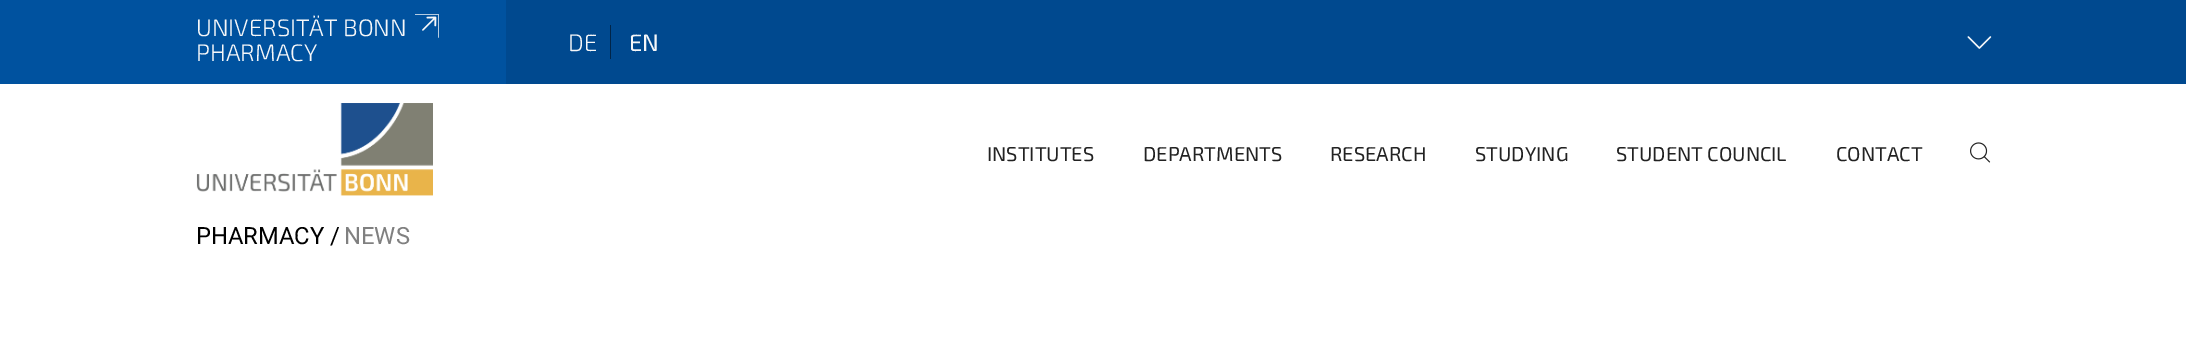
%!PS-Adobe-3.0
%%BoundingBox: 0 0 2186 354
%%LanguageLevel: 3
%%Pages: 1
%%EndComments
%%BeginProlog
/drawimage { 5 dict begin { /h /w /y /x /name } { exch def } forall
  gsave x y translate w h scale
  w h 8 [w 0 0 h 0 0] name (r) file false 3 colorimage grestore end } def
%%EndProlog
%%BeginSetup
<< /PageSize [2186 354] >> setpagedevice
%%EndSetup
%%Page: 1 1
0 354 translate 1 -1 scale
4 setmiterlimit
1 setgray
0 0 2186 354 rectfill
0 0.286 0.561 setrgbcolor
506 0 1680 84 rectfill
0 0.322 0.624 setrgbcolor
0 0 506 84 rectfill
(images/1.raw) 415 14 24 24 drawimage
0.004 0.145 0.282 setrgbcolor
610 25 1 34 rectfill
(images/2.raw) 1967 36 25 13 drawimage
(images/3.raw) 196 103 237 93 drawimage
(images/4.raw) 1970 142 21 21 drawimage
/Exo2-Light [23.75 0 0 -23.75 0 0] selectfont
0.965 0.969 0.976 setrgbcolor
196 36 moveto (UNIVERSITÄT BONN) show
196 61 moveto (PHARMACY) show
568 51 moveto (DE) show
/Exo2-Regular [23.75 0 0 -23.75 0 0] selectfont
629 51 moveto (EN) show
/Exo2-Regular [20.1 0 0 -20.1 0 0] selectfont
0.133 setgray
987 161 moveto (INSTITUTES) show
1143 161 moveto (DEPARTMENTS) show
1330 161 moveto (RESEARCH) show
1475 161 moveto (STUDYING) show
1616 161 moveto (STUDENT COUNCIL) show
1836 161 moveto (CONTACT) show
/Roboto-Regular [23.75 0 0 -23.75 0 0] selectfont
0 setgray
196 244 moveto (PHARMACY /) show
0.502 setgray
344 244 moveto (NEWS) show
showpage
%%EOF
